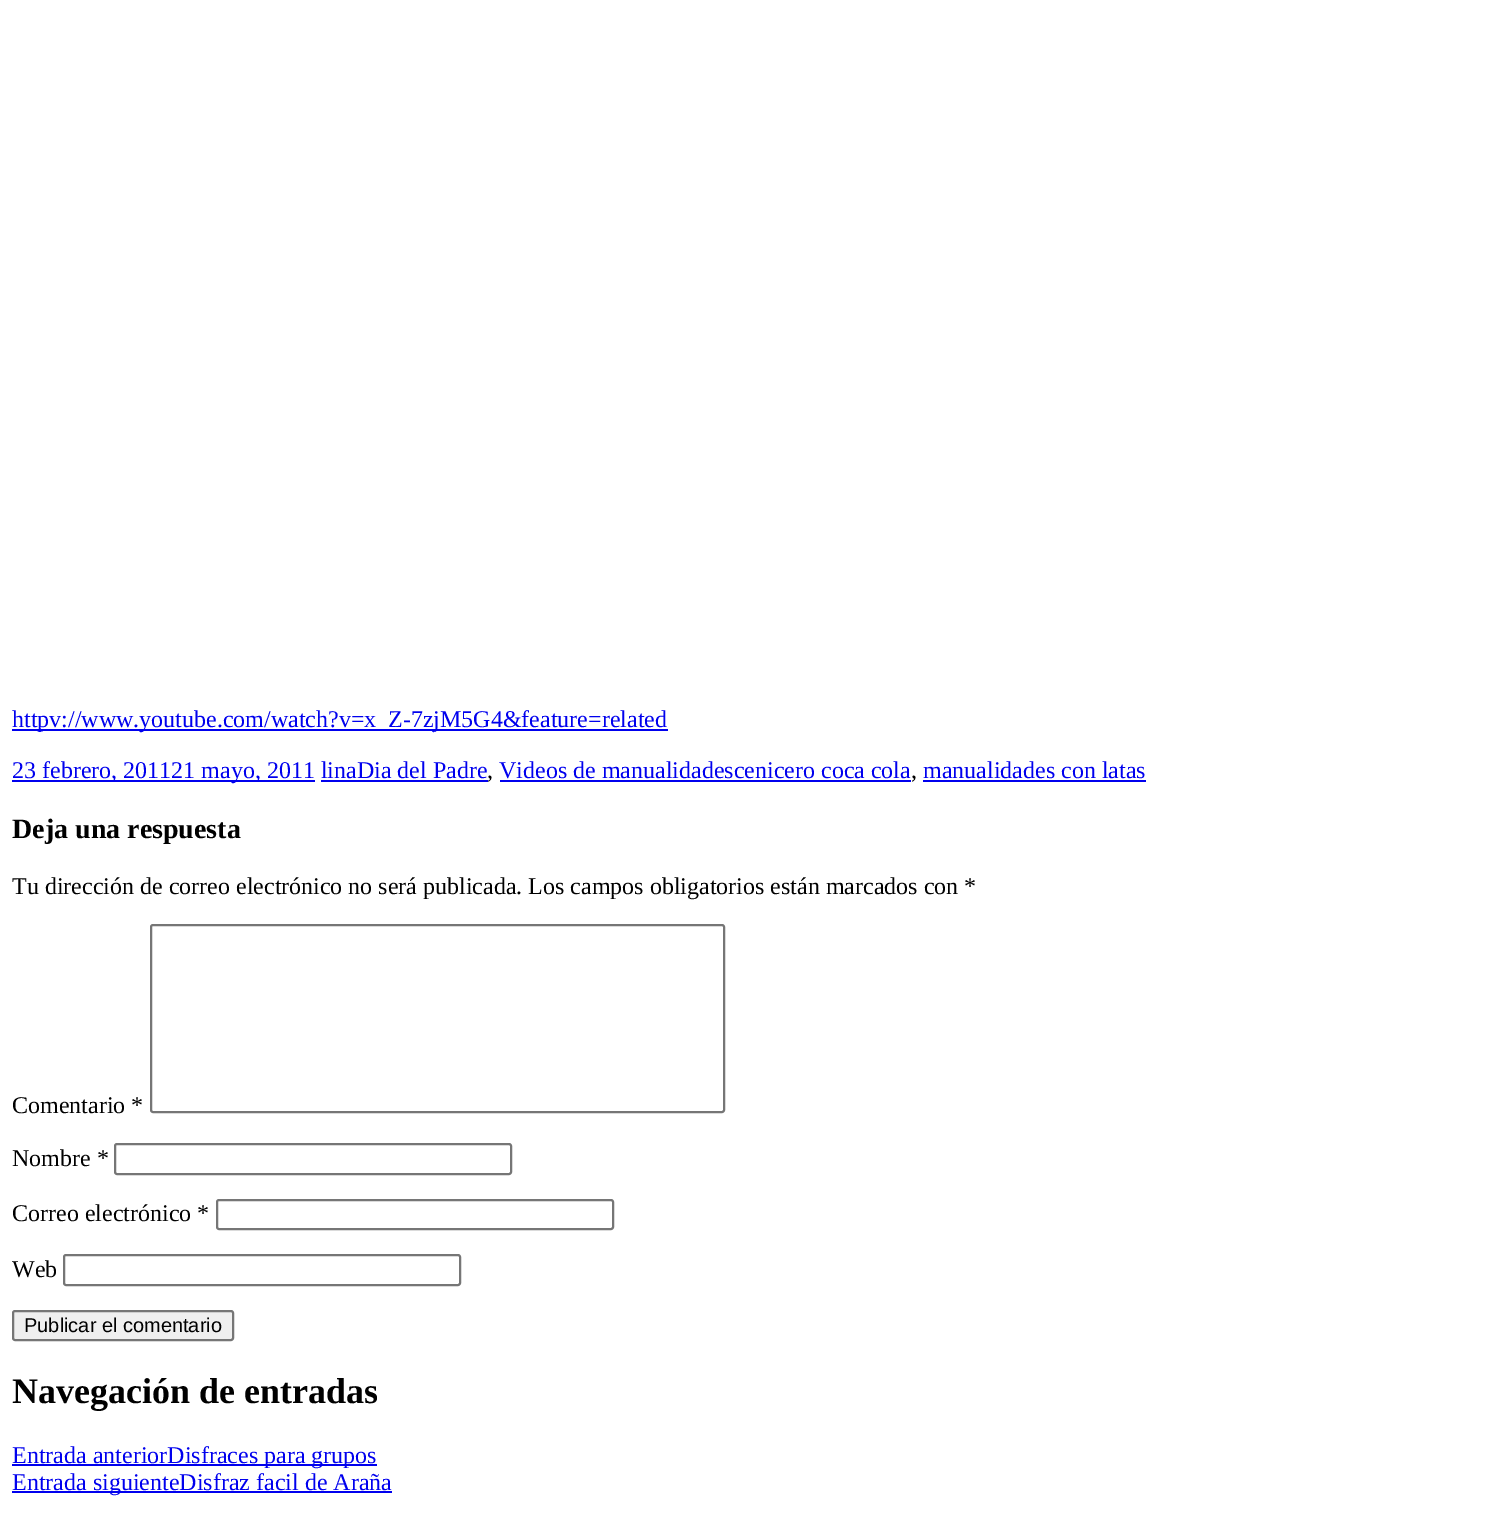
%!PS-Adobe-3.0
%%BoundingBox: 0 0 1510 1518
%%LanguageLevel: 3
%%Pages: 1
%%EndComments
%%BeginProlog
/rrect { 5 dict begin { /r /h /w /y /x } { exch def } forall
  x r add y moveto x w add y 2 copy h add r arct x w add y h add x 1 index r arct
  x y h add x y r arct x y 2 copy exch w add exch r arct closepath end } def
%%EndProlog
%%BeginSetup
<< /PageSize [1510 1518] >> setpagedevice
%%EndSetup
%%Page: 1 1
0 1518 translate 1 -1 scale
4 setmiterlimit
1 setgray
0 0 1510 1518 rectfill
0 0 0.933 setrgbcolor
12 729 656 2 rectfill
12 780 303 2 rectfill
500 780 411 2 rectfill
923 780 223 2 rectfill
321 780 167 2 rectfill
0.463 setgray
2 setlinewidth
151 925 573 187 2 rrect stroke
115 1144 396 30 2 rrect stroke
217 1200 396 29 2 rrect stroke
64 1255 396 30 2 rrect stroke
0.937 setgray
13 1311 220 29 2 rrect gsave fill grestore
0.463 setgray
stroke
0 0 0.933 setrgbcolor
12 1464 365 2 rectfill
12 1491 380 2 rectfill
/LiberationSerif-Regular [24 0 0 -24 0 0] selectfont
12 727 moveto (httpv://www.youtube.com/watch?v=x_Z-7zjM5G4&feature=related) show
12 778 moveto (23 febrero, 201121 mayo, 2011 linaDia del Padre) show
0 setgray
487 778 moveto (,) show
0 0 0.933 setrgbcolor
499 778 moveto (Videos de manualidadescenicero coca cola) show
0 setgray
911 778 moveto (,) show
0 0 0.933 setrgbcolor
923 778 moveto (manualidades con latas) show
/LiberationSerif-Bold [28 0 0 -28 0 0] selectfont
0 setgray
12 838 moveto (Deja una respuesta) show
/LiberationSerif-Regular [24 0 0 -24 0 0] selectfont
12 894 moveto (Tu dirección de correo electrónico no será publicada. Los campos obligatorios están marcados con *) show
12 1113 moveto (Comentario *) show
12 1166 moveto (Nombre *) show
12 1221 moveto (Correo electrónico *) show
12 1277 moveto (Web) show
/LiberationSans-Regular [20 0 0 -20 0 0] selectfont
24 1332 moveto (Publicar el comentario) show
/LiberationSerif-Bold [36 0 0 -36 0 0] selectfont
12 1403 moveto (Navegación de entradas) show
/LiberationSerif-Regular [24 0 0 -24 0 0] selectfont
0 0 0.933 setrgbcolor
12 1463 moveto (Entrada anteriorDisfraces para grupos) show
12 1490 moveto (Entrada siguienteDisfraz facil de Araña) show
showpage
%%EOF
